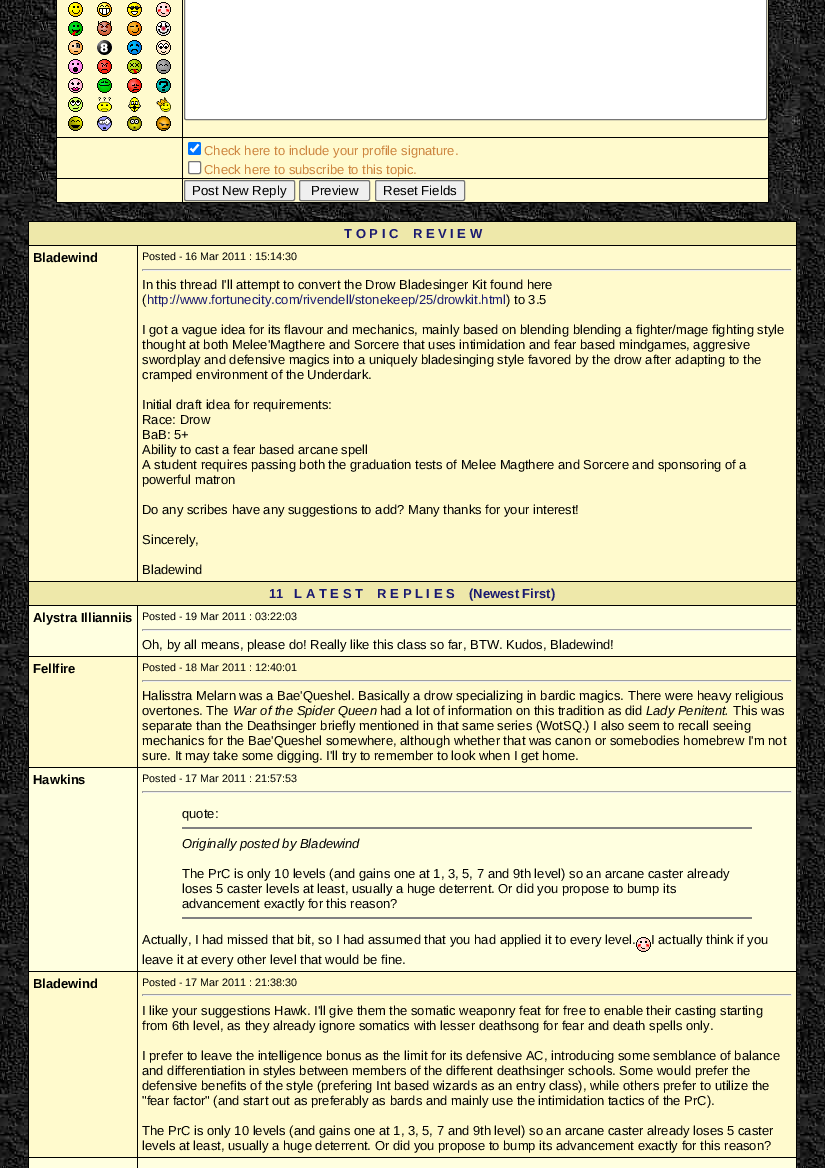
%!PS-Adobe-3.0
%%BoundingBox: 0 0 825 1168
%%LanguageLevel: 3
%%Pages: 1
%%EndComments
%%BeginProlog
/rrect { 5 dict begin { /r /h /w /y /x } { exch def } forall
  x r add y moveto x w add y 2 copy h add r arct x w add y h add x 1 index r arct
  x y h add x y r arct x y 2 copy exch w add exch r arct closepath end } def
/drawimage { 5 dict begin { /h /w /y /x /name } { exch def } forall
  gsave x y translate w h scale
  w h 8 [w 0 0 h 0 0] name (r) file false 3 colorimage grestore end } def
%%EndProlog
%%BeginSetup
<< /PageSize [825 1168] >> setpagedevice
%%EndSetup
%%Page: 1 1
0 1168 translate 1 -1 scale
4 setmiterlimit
1 setgray
0 0 825 1168 rectfill
(images/1.raw) 0 0 825 1168 drawimage
0 setgray
56 0 713 203 rectfill
1 0.98 0.804 setrgbcolor
57 0 125 137 rectfill
(images/2.raw) 68 2 15 15 drawimage
(images/3.raw) 97 2 15 15 drawimage
(images/4.raw) 127 2 15 15 drawimage
(images/5.raw) 156 2 15 15 drawimage
(images/6.raw) 68 21 15 15 drawimage
(images/7.raw) 97 21 15 15 drawimage
(images/8.raw) 127 21 15 15 drawimage
(images/9.raw) 156 21 15 15 drawimage
(images/10.raw) 68 40 15 15 drawimage
(images/11.raw) 97 40 15 15 drawimage
(images/12.raw) 127 40 15 15 drawimage
(images/13.raw) 156 40 15 15 drawimage
(images/14.raw) 68 59 15 15 drawimage
(images/15.raw) 97 59 15 15 drawimage
(images/16.raw) 127 59 15 15 drawimage
(images/17.raw) 156 59 15 15 drawimage
(images/18.raw) 68 78 15 15 drawimage
(images/19.raw) 97 78 15 15 drawimage
(images/20.raw) 127 78 15 15 drawimage
(images/21.raw) 156 78 15 15 drawimage
(images/22.raw) 68 97 15 15 drawimage
(images/23.raw) 97 97 15 15 drawimage
(images/24.raw) 128 97 13 15 drawimage
(images/25.raw) 156 97 15 15 drawimage
(images/26.raw) 68 116 15 15 drawimage
(images/27.raw) 97 116 15 15 drawimage
(images/28.raw) 127 116 15 15 drawimage
(images/29.raw) 156 116 15 15 drawimage
183 0 585 137 rectfill
1 setgray
184.5 -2.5 582 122 1.5 rrect gsave fill grestore
0.463 setgray
stroke
1 0.98 0.804 setrgbcolor
57 138 125 40 rectfill
183 138 585 40 rectfill
0 0.459 1 setrgbcolor
188 142 13 13 2 rrect fill
1 setgray
2.1 setlinewidth
newpath 190.5 148.5 moveto 193 151 lineto 198.5 144.5 lineto stroke
188.5 161.5 12 12 1.5 rrect gsave fill grestore
0.463 setgray
1 setlinewidth
stroke
1 0.98 0.804 setrgbcolor
57 179 125 23 rectfill
183 179 585 23 rectfill
0.937 setgray
184.5 180.5 110 20 1.5 rrect gsave fill grestore
0.463 setgray
stroke
0.937 setgray
299.5 180.5 70 20 1.5 rrect gsave fill grestore
0.463 setgray
stroke
0.937 setgray
375.5 180.5 89 20 1.5 rrect gsave fill grestore
0.463 setgray
stroke
0 setgray
28 221 769 947 rectfill
0.933 0.91 0.667 setrgbcolor
29 222 767 23 rectfill
1 0.98 0.804 setrgbcolor
29 246 108 335 rectfill
138 246 658 335 rectfill
0.624 setgray
142 269 650 1 rectfill
0.933 setgray
791 269 1 2 rectfill
142 270 650 1 rectfill
0.624 setgray
142 269 1 2 rectfill
0.933 0.91 0.667 setrgbcolor
29 582 767 23 rectfill
1 1 0.878 setrgbcolor
29 606 108 50 rectfill
138 606 658 50 rectfill
0.624 setgray
142 629 650 1 rectfill
0.933 setgray
791 629 1 2 rectfill
142 630 650 1 rectfill
0.624 setgray
142 629 1 2 rectfill
1 0.98 0.804 setrgbcolor
29 657 108 110 rectfill
138 657 658 110 rectfill
0.624 setgray
142 680 650 1 rectfill
0.933 setgray
791 680 1 2 rectfill
142 681 650 1 rectfill
0.624 setgray
142 680 1 2 rectfill
1 1 0.878 setrgbcolor
29 768 108 203 rectfill
138 768 658 203 rectfill
0.624 setgray
142 791 650 1 rectfill
0.933 setgray
791 791 1 2 rectfill
142 792 650 1 rectfill
0.624 setgray
142 791 1 2 rectfill
0.502 setgray
182 827 570 2 rectfill
182 917 570 2 rectfill
(images/30.raw) 636 937 15 15 drawimage
1 0.98 0.804 setrgbcolor
29 972 108 185 rectfill
138 972 658 185 rectfill
0.624 setgray
142 994 650 1 rectfill
0.933 setgray
791 994 1 2 rectfill
142 995 650 1 rectfill
0.624 setgray
142 994 1 2 rectfill
1 1 0.878 setrgbcolor
29 1158 108 10 rectfill
138 1158 658 10 rectfill
/LiberationSans-Regular [13 0 0 -13 0 0] selectfont
0.804 0.522 0.247 setrgbcolor
204 155 moveto (Check here to include your profile signature.) show
204 174 moveto (Check here to subscribe to this topic.) show
/LiberationSans-Regular [13.25 0 0 -13.25 0 0] selectfont
0 setgray
192 195 moveto (Post New Reply) show
311 195 moveto (Preview) show
383 195 moveto (Reset Fields) show
/LiberationSans-Bold [13 0 0 -13 0 0] selectfont
0.098 0.098 0.439 setrgbcolor
344 238 moveto (T O P I C    R E V I E W) show
0 setgray
33 262 moveto (Bladewind) show
/LiberationSans-Regular [10.8 0 0 -10.8 0 0] selectfont
142 260 moveto (Posted - 16 Mar 2011 : 15:14:30) show
/LiberationSans-Regular [13 0 0 -13 0 0] selectfont
142 289 moveto (In this thread I'll attempt to convert the Drow Bladesinger Kit found here) show
142 304 moveto (\() show
0.098 0.098 0.439 setrgbcolor
147 304 moveto (http://www.fortunecity.com/rivendell/stonekeep/25/drowkit.html) show
0 setgray
506 304 moveto (\) to 3.5) show
142 334 moveto (I got a vague idea for its flavour and mechanics, mainly based on blending blending a fighter/mage fighting style) show
142 349 moveto (thought at both Melee'Magthere and Sorcere that uses intimidation and fear based mindgames, aggresive) show
142 364 moveto (swordplay and defensive magics into a uniquely bladesinging style favored by the drow after adapting to the) show
142 379 moveto (cramped environment of the Underdark.) show
142 409 moveto (Initial draft idea for requirements:) show
142 424 moveto (Race: Drow) show
142 439 moveto (BaB: 5+) show
142 454 moveto (Ability to cast a fear based arcane spell) show
142 469 moveto (A student requires passing both the graduation tests of Melee Magthere and Sorcere and sponsoring of a) show
142 484 moveto (powerful matron) show
142 514 moveto (Do any scribes have any suggestions to add? Many thanks for your interest!) show
142 544 moveto (Sincerely,) show
142 574 moveto (Bladewind) show
/LiberationSans-Bold [13 0 0 -13 0 0] selectfont
0.098 0.098 0.439 setrgbcolor
269 598 moveto (11   L A T E S T    R E P L I E S    \(Newest First\)) show
0 setgray
33 622 moveto (Alystra Illianniis) show
/LiberationSans-Regular [10.8 0 0 -10.8 0 0] selectfont
142 620 moveto (Posted - 19 Mar 2011 : 03:22:03) show
/LiberationSans-Regular [13 0 0 -13 0 0] selectfont
142 649 moveto (Oh, by all means, please do! Really like this class so far, BTW. Kudos, Bladewind!) show
/LiberationSans-Bold [13 0 0 -13 0 0] selectfont
33 673 moveto (Fellfire) show
/LiberationSans-Regular [10.8 0 0 -10.8 0 0] selectfont
142 671 moveto (Posted - 18 Mar 2011 : 12:40:01) show
/LiberationSans-Regular [13 0 0 -13 0 0] selectfont
142 700 moveto (Halisstra Melarn was a Bae'Queshel. Basically a drow specializing in bardic magics. There were heavy religious) show
142 715 moveto (overtones. The) show
/LiberationSans-Italic [13 0 0 -13 0 0] selectfont
233 715 moveto (War of the Spider Queen) show
/LiberationSans-Regular [13 0 0 -13 0 0] selectfont
380 715 moveto (had a lot of information on this tradition as did) show
/LiberationSans-Italic [13 0 0 -13 0 0] selectfont
646 715 moveto (Lady Penitent.) show
/LiberationSans-Regular [13 0 0 -13 0 0] selectfont
733 715 moveto (This was) show
142 730 moveto (separate than the Deathsinger briefly mentioned in that same series \(WotSQ.\) I also seem to recall seeing) show
142 745 moveto (mechanics for the Bae'Queshel somewhere, although whether that was canon or somebodies homebrew I'm not) show
142 760 moveto (sure. It may take some digging. I'll try to remember to look when I get home.) show
/LiberationSans-Bold [13 0 0 -13 0 0] selectfont
33 784 moveto (Hawkins) show
/LiberationSans-Regular [10.8 0 0 -10.8 0 0] selectfont
142 782 moveto (Posted - 17 Mar 2011 : 21:57:53) show
/LiberationSans-Regular [13 0 0 -13 0 0] selectfont
182 818 moveto (quote:) show
/LiberationSans-Italic [13 0 0 -13 0 0] selectfont
182 848 moveto (Originally posted by Bladewind) show
/LiberationSans-Regular [13 0 0 -13 0 0] selectfont
182 878 moveto (The PrC is only 10 levels \(and gains one at 1, 3, 5, 7 and 9th level\) so an arcane caster already) show
182 893 moveto (loses 5 caster levels at least, usually a huge deterrent. Or did you propose to bump its) show
182 908 moveto (advancement exactly for this reason?) show
142 944 moveto (Actually, I had missed that bit, so I had assumed that you had applied it to every level.) show
651 944 moveto (I actually think if you) show
142 964 moveto (leave it at every other level that would be fine.) show
/LiberationSans-Bold [13 0 0 -13 0 0] selectfont
33 988 moveto (Bladewind) show
/LiberationSans-Regular [10.8 0 0 -10.8 0 0] selectfont
142 986 moveto (Posted - 17 Mar 2011 : 21:38:30) show
/LiberationSans-Regular [13 0 0 -13 0 0] selectfont
142 1015 moveto (I like your suggestions Hawk. I'll give them the somatic weaponry feat for free to enable their casting starting) show
142 1030 moveto (from 6th level, as they already ignore somatics with lesser deathsong for fear and death spells only.) show
142 1060 moveto (I prefer to leave the intelligence bonus as the limit for its defensive AC, introducing some semblance of balance) show
142 1075 moveto (and differentiation in styles between members of the different deathsinger schools. Some would prefer the) show
142 1090 moveto (defensive benefits of the style \(prefering Int based wizards as an entry class\), while others prefer to utilize the) show
142 1105 moveto ("fear factor" \(and start out as preferably as bards and mainly use the intimidation tactics of the PrC\).) show
142 1135 moveto (The PrC is only 10 levels \(and gains one at 1, 3, 5, 7 and 9th level\) so an arcane caster already loses 5 caster) show
142 1150 moveto (levels at least, usually a huge deterrent. Or did you propose to bump its advancement exactly for this reason?) show
showpage
%%EOF
